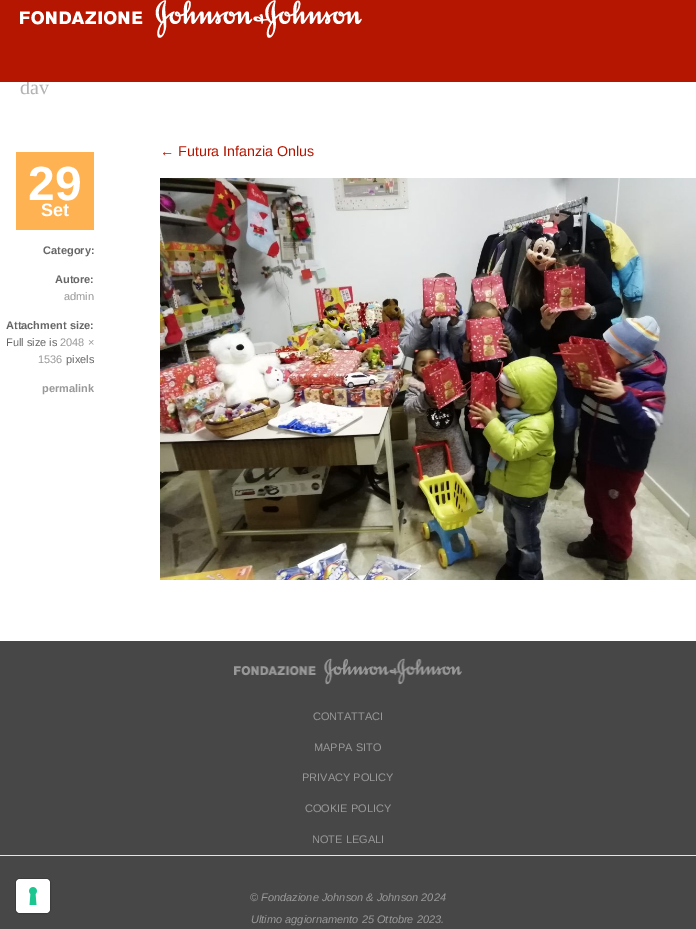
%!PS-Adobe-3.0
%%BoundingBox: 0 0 696 929
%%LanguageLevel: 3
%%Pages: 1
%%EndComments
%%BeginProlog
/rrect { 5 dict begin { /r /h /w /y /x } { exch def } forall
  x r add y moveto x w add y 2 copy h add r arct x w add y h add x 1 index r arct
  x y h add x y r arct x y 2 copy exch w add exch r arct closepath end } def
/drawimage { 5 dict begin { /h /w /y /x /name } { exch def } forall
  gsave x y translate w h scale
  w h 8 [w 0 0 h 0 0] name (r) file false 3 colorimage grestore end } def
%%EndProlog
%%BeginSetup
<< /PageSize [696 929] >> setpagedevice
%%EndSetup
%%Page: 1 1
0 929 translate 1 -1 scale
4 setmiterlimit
1 setgray
0 0 696 929 rectfill
0.706 0.086 0.004 setrgbcolor
0 0 696 82 rectfill
(images/1.raw) 20 0 342 38 drawimage
(images/2.raw) 160 178 536 402 drawimage
1 0.698 0.318 setrgbcolor
16 152 78 78 rectfill
0.278 setgray
0 641 696 288 rectfill
0.235 setgray
15.5 878.5 35 35 4.5 rrect stroke
1 setgray
16 879 34 34 4 rrect fill
(images/3.raw) 29 887 8 18 drawimage
(images/4.raw) 234 658 228 27 drawimage
0.898 setgray
0 855 696 1 rectfill
gsave
0 82 696 539 rectclip
/LiberationSerif-Regular [20 0 0 -20 0 0] selectfont
0.702 setgray
20 94 moveto (dav) show
grestore
/LiberationSans-Regular [14.25 0 0 -14.25 0 0] selectfont
0.706 0.086 0.004 setrgbcolor
160 156 moveto (← Futura Infanzia Onlus) show
/LiberationSans-Bold [48 0 0 -48 0 0] selectfont
1 setgray
28 200 moveto (29) show
/LiberationSans-Bold [18 0 0 -18 0 0] selectfont
41 216 moveto (Set) show
/LiberationSans-Bold [11 0 0 -11 0 0] selectfont
0.4 setgray
43 254 moveto (Category:) show
55 283 moveto (Autore:) show
/LiberationSans-Regular [11 0 0 -11 0 0] selectfont
0.6 setgray
64 300 moveto (admin) show
/LiberationSans-Bold [11 0 0 -11 0 0] selectfont
0.4 setgray
6 329 moveto (Attachment size:) show
/LiberationSans-Regular [11 0 0 -11 0 0] selectfont
6 346 moveto (Full size is) show
0.6 setgray
60 346 moveto (2048 ×) show
38 363 moveto (1536) show
0.4 setgray
66 363 moveto (pixels) show
/LiberationSans-Bold [11 0 0 -11 0 0] selectfont
0.6 setgray
42 392 moveto (permalink) show
/LiberationSans-Regular [11 0 0 -11 0 0] selectfont
313 720 moveto (CONTATTACI) show
314 751 moveto (MAPPA SITO) show
302 781 moveto (PRIVACY POLICY) show
305 812 moveto (COOKIE POLICY) show
312 843 moveto (NOTE LEGALI) show
/LiberationSans-Italic [11 0 0 -11 0 0] selectfont
250 901 moveto (© Fondazione Johnson & Johnson 2024) show
251 923 moveto (Ultimo aggiornamento 25 Ottobre 2023.) show
showpage
%%EOF
